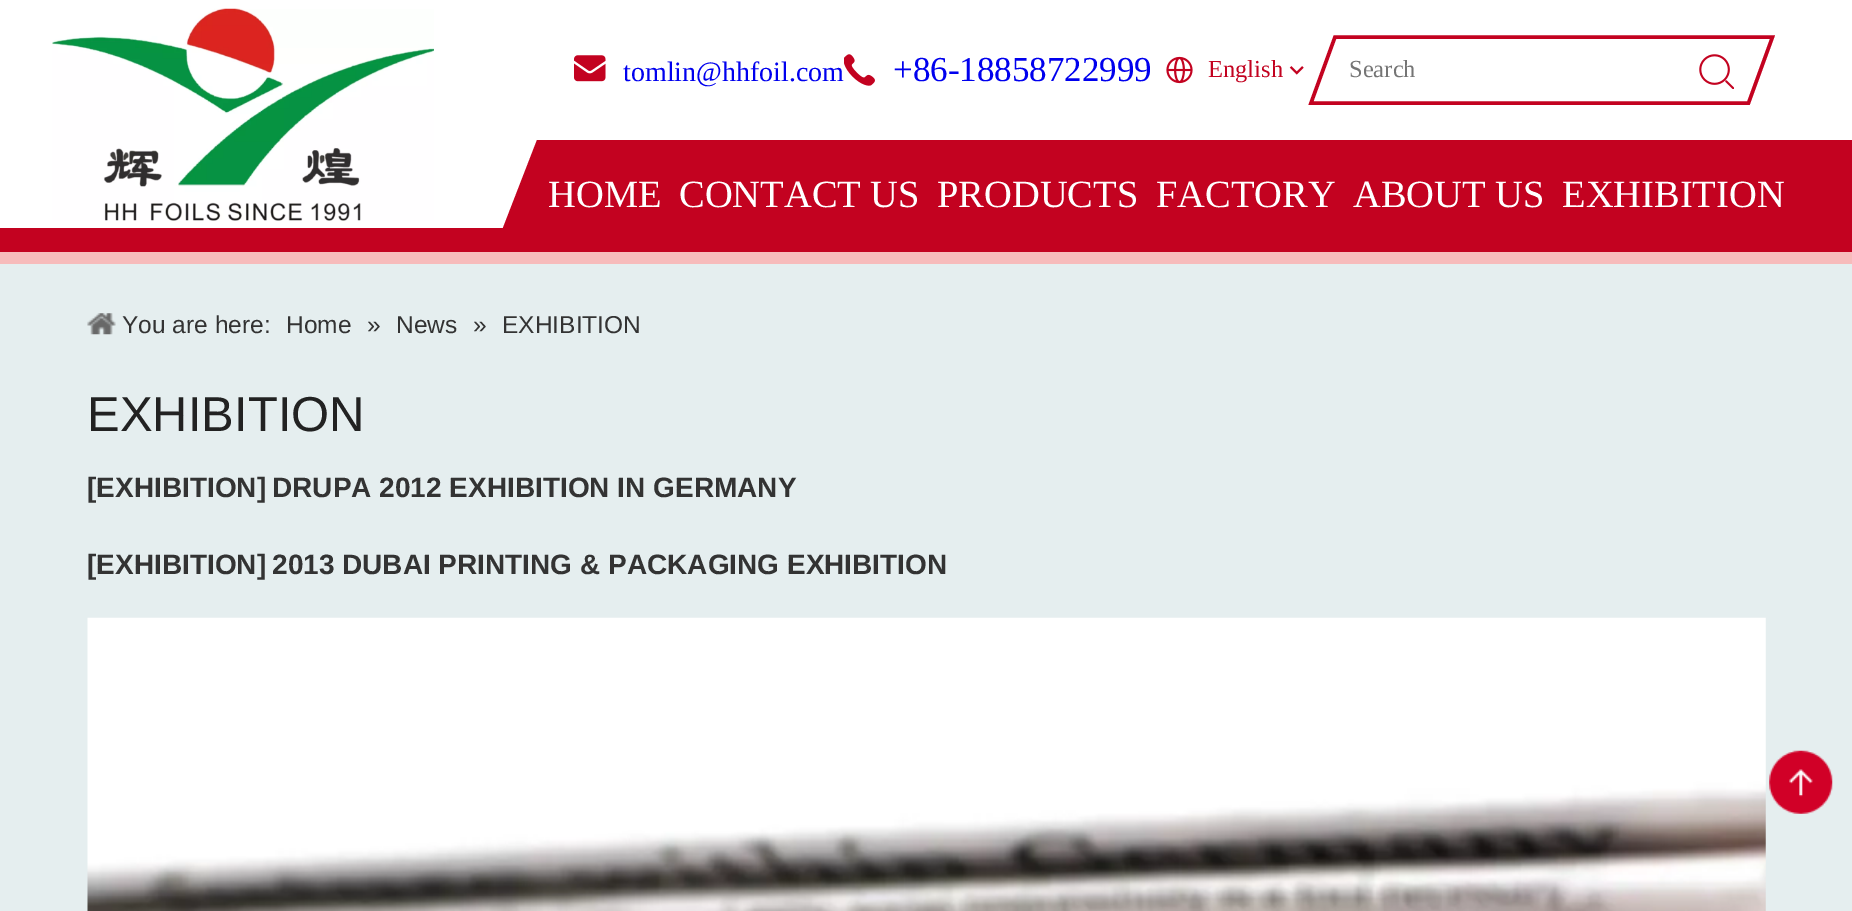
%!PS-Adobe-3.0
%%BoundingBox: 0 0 1852 911
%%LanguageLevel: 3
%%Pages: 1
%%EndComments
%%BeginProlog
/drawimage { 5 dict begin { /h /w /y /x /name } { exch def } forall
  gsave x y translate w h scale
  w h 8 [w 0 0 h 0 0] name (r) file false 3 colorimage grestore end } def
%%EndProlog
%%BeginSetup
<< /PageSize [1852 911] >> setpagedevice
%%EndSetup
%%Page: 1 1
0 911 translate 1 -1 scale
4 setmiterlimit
0.898 0.933 0.937 setrgbcolor
0 0 1852 911 rectfill
1 setgray
0 0 1852 228 rectfill
(images/1.raw) 52 8 382 213 drawimage
(images/2.raw) 574 55 32 27 drawimage
(images/3.raw) 844 54 31 32 drawimage
(images/4.raw) 1166 56 27 28 drawimage
(images/5.raw) 1289 66 15 9 drawimage
0.765 0.008 0.125 setrgbcolor
3.5 setlinewidth
newpath 1335 37 moveto 1772.5 37 lineto 1748.5 103 lineto 1311 103 lineto closepath stroke
(images/6.raw) 1699 54 35 35 drawimage
0.969 0.733 0.733 setrgbcolor
0 252 499 12 rectfill
newpath 537 152 moveto 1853 152 lineto 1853 264 lineto 494 264 lineto 494 263 lineto closepath fill
0.765 0.008 0.125 setrgbcolor
0 228 503 24 rectfill
newpath 537 140 moveto 494 251 lineto 494 252 lineto 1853 252 lineto 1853 140 lineto closepath fill
(images/7.raw) 87 313 29 22 drawimage
(images/8.raw) 87 617 1679 294 drawimage
(images/9.raw) 1769 750 64 64 drawimage
/LiberationSerif-Regular [28 0 0 -28 0 0] selectfont
0 0 0.933 setrgbcolor
623 81 moveto (tomlin@hhfoil.com) show
/LiberationSerif-Regular [35 0 0 -35 0 0] selectfont
893 81 moveto (+86-18858722999) show
/LiberationSerif-Regular [24.5 0 0 -24.5 0 0] selectfont
0.765 0.008 0.125 setrgbcolor
1208 77 moveto (English) show
0.459 setgray
1349 77 moveto (Search) show
/LiberationSerif-Regular [38.5 0 0 -38.5 0 0] selectfont
1 setgray
548 207 moveto (HOME) show
679 207 moveto (CONTACT US) show
937 207 moveto (PRODUCTS) show
1156 207 moveto (FACTORY) show
1353 207 moveto (ABOUT US) show
1562 207 moveto (EXHIBITION) show
/LiberationSans-Regular [24.5 0 0 -24.5 0 0] selectfont
0.2 setgray
122 333 moveto (You are here:) show
286 333 moveto (Home) show
367 333 moveto (») show
396 333 moveto (News) show
473 333 moveto (») show
502 333 moveto (EXHIBITION) show
/LiberationSans-Regular [49 0 0 -49 0 0] selectfont
0.133 setgray
87 431 moveto (EXHIBITION) show
/LiberationSans-Bold [28 0 0 -28 0 0] selectfont
0.2 setgray
87 497 moveto ([EXHIBITION]) show
272 497 moveto (DRUPA 2012 EXHIBITION IN GERMANY) show
87 574 moveto ([EXHIBITION]) show
272 574 moveto (2013 DUBAI PRINTING & PACKAGING EXHIBITION) show
showpage
%%EOF
